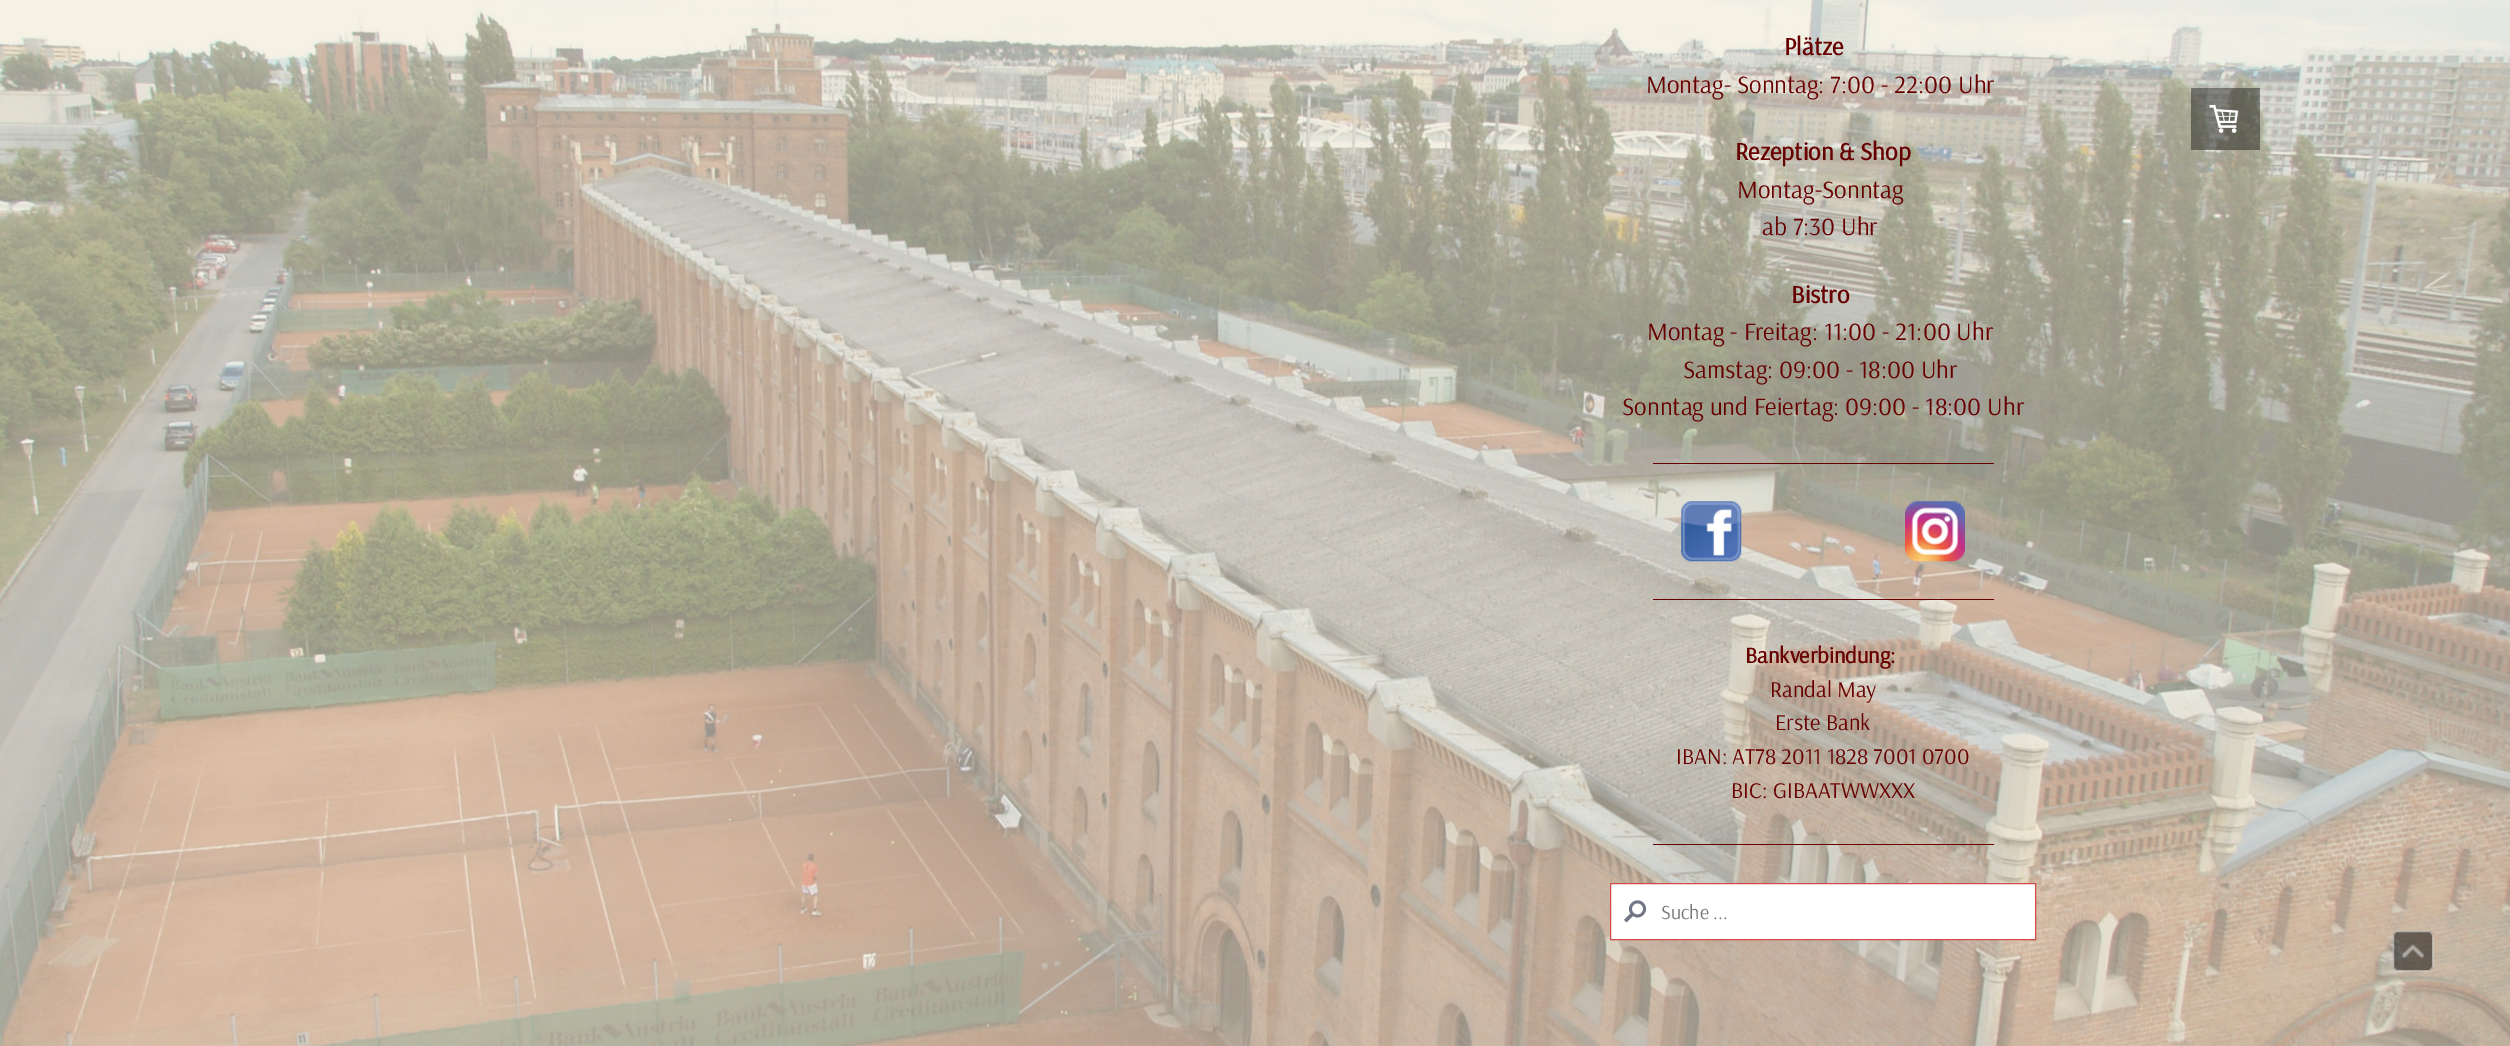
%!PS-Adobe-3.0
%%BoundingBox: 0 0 2510 1046
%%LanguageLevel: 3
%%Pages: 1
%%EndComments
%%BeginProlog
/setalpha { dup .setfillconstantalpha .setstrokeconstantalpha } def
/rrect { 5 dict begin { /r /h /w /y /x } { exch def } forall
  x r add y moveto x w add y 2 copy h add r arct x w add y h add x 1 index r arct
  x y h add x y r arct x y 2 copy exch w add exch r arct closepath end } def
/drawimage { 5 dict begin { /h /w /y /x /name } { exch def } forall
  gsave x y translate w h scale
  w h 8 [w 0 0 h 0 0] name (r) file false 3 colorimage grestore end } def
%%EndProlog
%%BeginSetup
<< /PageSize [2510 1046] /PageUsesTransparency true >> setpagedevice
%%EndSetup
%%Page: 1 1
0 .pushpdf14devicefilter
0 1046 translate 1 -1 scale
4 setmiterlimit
1 setgray
0 0 2510 1046 rectfill
(images/1.raw) 0 0 2510 1046 drawimage
0.404 0 0 setrgbcolor
1653 463 341 1 rectfill
(images/2.raw) 1681 501 61 61 drawimage
(images/3.raw) 1905 501 60 61 drawimage
1653 599 341 1 rectfill
1653 844 341 1 rectfill
1 setgray
newpath 1610.5 883.5 moveto 2035.5 883.5 lineto 2035.5 939.5 lineto 1610.5 939.5 lineto closepath gsave fill grestore
0.835 0.294 0.294 setrgbcolor
stroke
(images/4.raw) 1624 900 23 23 drawimage
0.4 setalpha
0 setgray
2191 88 69 62 rectfill
1 setalpha
(images/5.raw) 2209 105 30 28 drawimage
0.5 setalpha
2393 931 40 40 5 rrect fill
1 setgray
2393.5 931.5 39 39 4.5 rrect stroke
1 setalpha
(images/6.raw) 2402 944 23 14 drawimage
/Arsenal-Bold [25 0 0 -25 0 0] selectfont
0.404 0 0 setrgbcolor
1784 55 moveto (Plätze) show
/Arsenal-Regular [25 0 0 -25 0 0] selectfont
1646 93 moveto (Montag- Sonntag: 7:00 - 22:00 Uhr) show
/Arsenal-Bold [25 0 0 -25 0 0] selectfont
1735 160 moveto (Rezeption & Shop) show
/Arsenal-Regular [25 0 0 -25 0 0] selectfont
1737 198 moveto (Montag-Sonntag) show
1762 235 moveto (ab 7:30 Uhr) show
/Arsenal-Bold [25 0 0 -25 0 0] selectfont
1791 303 moveto (Bistro) show
/Arsenal-Regular [25 0 0 -25 0 0] selectfont
1647 340 moveto (Montag - Freitag: 11:00 - 21:00 Uhr) show
1683 378 moveto (Samstag: 09:00 - 18:00 Uhr) show
1622 415 moveto (Sonntag und Feiertag: 09:00 - 18:00 Uhr) show
/Arsenal-Bold [22.5 0 0 -22.5 0 0] selectfont
1745 663 moveto (Bankverbindung:) show
/Arsenal-Regular [22.5 0 0 -22.5 0 0] selectfont
1770 697 moveto (Randal May) show
1775 730 moveto (Erste Bank) show
1676 764 moveto (IBAN: AT78 2011 1828 7001 0700) show
1731 798 moveto (BIC: GIBAATWWXXX) show
/Arsenal-Regular [20 0 0 -20 0 0] selectfont
0.459 setgray
1661 919 moveto (Suche ...) show
.poppdf14devicefilter showpage
%%EOF
